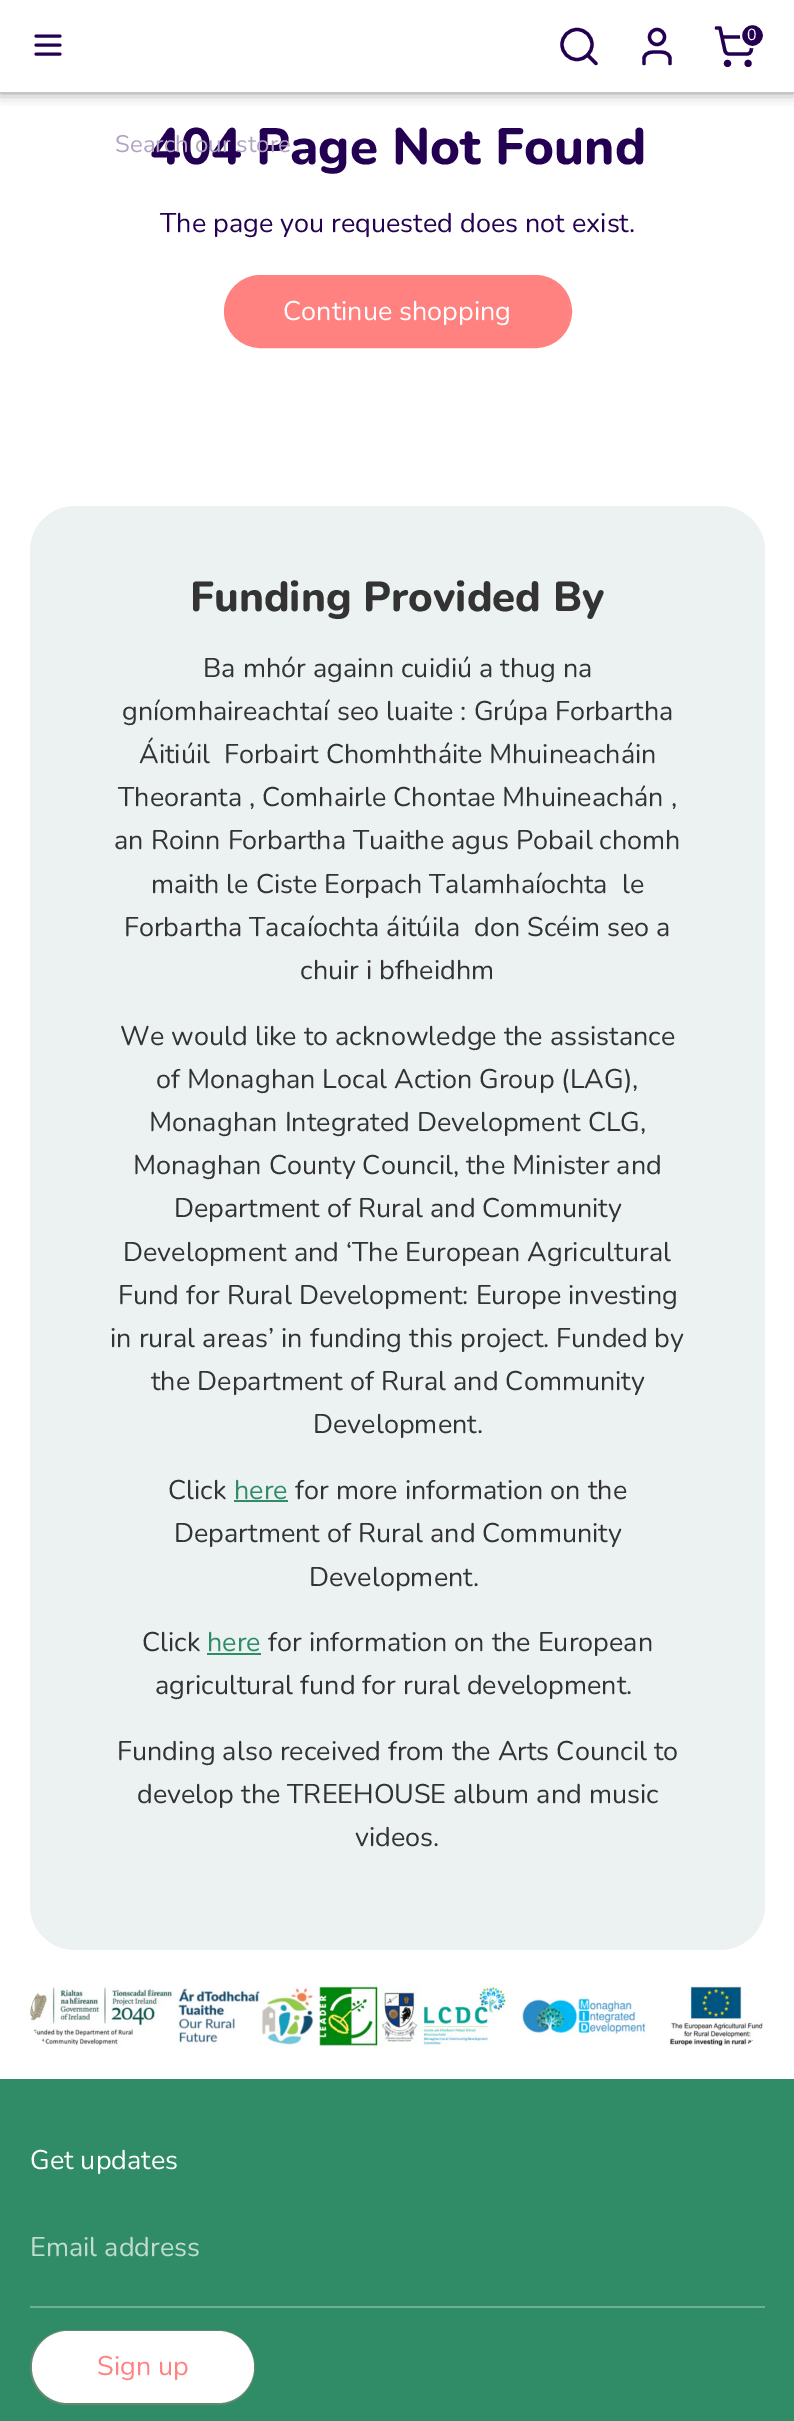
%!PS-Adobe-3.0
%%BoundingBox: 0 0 794 2421
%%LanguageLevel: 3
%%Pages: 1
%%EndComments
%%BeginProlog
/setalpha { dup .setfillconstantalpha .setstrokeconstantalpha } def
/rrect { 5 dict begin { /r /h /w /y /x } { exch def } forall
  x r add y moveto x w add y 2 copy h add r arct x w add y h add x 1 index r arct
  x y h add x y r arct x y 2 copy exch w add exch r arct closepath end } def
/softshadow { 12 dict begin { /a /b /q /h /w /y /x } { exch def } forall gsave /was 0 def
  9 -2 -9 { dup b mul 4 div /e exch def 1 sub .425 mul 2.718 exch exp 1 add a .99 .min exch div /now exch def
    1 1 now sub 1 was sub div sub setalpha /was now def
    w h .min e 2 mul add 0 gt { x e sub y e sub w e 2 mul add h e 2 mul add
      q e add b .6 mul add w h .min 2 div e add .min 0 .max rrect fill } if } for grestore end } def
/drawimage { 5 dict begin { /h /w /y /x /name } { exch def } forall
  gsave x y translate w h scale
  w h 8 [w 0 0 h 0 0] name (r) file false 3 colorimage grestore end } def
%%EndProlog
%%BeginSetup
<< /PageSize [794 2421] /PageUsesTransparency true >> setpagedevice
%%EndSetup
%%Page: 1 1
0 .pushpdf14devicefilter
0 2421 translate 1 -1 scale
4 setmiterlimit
1 setgray
0 0 794 2421 rectfill
0 setgray
0 -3 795 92 0 7.5 0.75 softshadow
1 setgray
0 0 794 92 rectfill
0.137 0 0.318 setrgbcolor
3 setlinewidth
1 setlinecap
1 setlinejoin
newpath 36 45 moveto 60 45 lineto 36 36 moveto 60 36 lineto 36 54 moveto 60 54 lineto stroke
3.3 setlinewidth
0 setlinecap
0 setlinejoin
newpath 577 44.5 15 0 360 arc closepath stroke
1 setlinecap
1 setlinejoin
newpath 596 63.5 moveto 587.5 55 lineto stroke
newpath 670 63.5 moveto 670 58 lineto 668.5 51.5 662 52 657 52 curveto 652 52 645.5 51.5 644 58 curveto 644 63.5 lineto stroke
0 setlinecap
0 setlinejoin
newpath 657 37 7.5 0 360 arc closepath stroke
newpath 727.5 63.4 1.9 0 360 arc closepath stroke
newpath 748.1 63.4 1.9 0 360 arc closepath stroke
1 setlinecap
1 setlinejoin
newpath 716.5 28 moveto 720 28 lineto 725 51 lineto 725.5 53 727 54 729 54 curveto 747 54 lineto 749 54 750.5 53 751 51 curveto 754 37 lineto 722 37 lineto stroke
newpath 752.5 35.5 11.5 0 360 arc closepath gsave fill grestore
1 setgray
2 setlinewidth
0 setlinecap
0 setlinejoin
stroke
1 0.51 0.506 setrgbcolor
225 276 346 71 35.5 rrect stroke
225 276 345 71 35.5 rrect fill
0.925 0.945 0.949 setrgbcolor
30 506 735 1444 45 rrect fill
0.184 0.549 0.404 setrgbcolor
234 1500 54 2 rectfill
207 1653 54 2 rectfill
(images/1.raw) 30 1984 733 63 drawimage
0 2079 794 342 rectfill
0.427 0.686 0.584 setrgbcolor
30 2306 735 2 rectfill
0.388 0.541 0.431 setrgbcolor
31 2331 223 73 36.5 rrect stroke
1 setgray
32 2331 222 72 36 rrect fill
/Nunito-Regular [16 0 0 -16 0 0] selectfont
747 40 moveto (0) show
/Nunito-ExtraBold [51 0 0 -51 0 0] selectfont
0.137 0 0.318 setrgbcolor
150 164 moveto (404 Page Not Found) show
/Nunito-Regular [24 0 0 -24 0 0] selectfont
0.694 0.643 0.757 setrgbcolor
115 152 moveto (Search our store) show
/Nunito-Regular [27 0 0 -27 0 0] selectfont
0.137 0 0.318 setrgbcolor
160 232 moveto (The page you requested does not exist.) show
1 setgray
283 320 moveto (Continue shopping) show
/Nunito-ExtraBold [42 0 0 -42 0 0] selectfont
0.2 setgray
190 611 moveto (Funding Provided By) show
/Nunito-Regular [27 0 0 -27 0 0] selectfont
203 677 moveto (Ba mhór againn cuidiú a thug na) show
122 720 moveto (gníomhaireachtaí seo luaite : Grúpa Forbartha) show
139 763 moveto (Áitiúil  Forbairt Chomhtháite Mhuineacháin) show
118 806 moveto (Theoranta , Comhairle Chontae Mhuineachán ,) show
114 849 moveto (an Roinn Forbartha Tuaithe agus Pobail chomh) show
151 893 moveto (maith le Ciste Eorpach Talamhaíochta  le) show
124 936 moveto (Forbartha Tacaíochta áitúila  don Scéim seo a) show
300 979 moveto (chuir i bfheidhm) show
120 1045 moveto (We would like to acknowledge the assistance) show
156 1088 moveto (of Monaghan Local Action Group \(LAG\),) show
149 1131 moveto (Monaghan Integrated Development CLG,) show
133 1174 moveto (Monaghan County Council, the Minister and) show
174 1217 moveto (Department of Rural and Community) show
123 1261 moveto (Development and ‘The European Agricultural) show
118 1304 moveto (Fund for Rural Development: Europe investing) show
110 1347 moveto (in rural areas’ in funding this project. Funded by) show
151 1390 moveto (the Department of Rural and Community) show
313 1433 moveto (Development.) show
168 1499 moveto (Click) show
0.184 0.549 0.404 setrgbcolor
234 1499 moveto (here) show
0.2 setgray
295 1499 moveto (for more information on the) show
174 1542 moveto (Department of Rural and Community) show
309 1586 moveto (Development.) show
142 1651 moveto (Click) show
0.184 0.549 0.404 setrgbcolor
207 1651 moveto (here) show
0.2 setgray
268 1651 moveto (for information on the European) show
155 1694 moveto (agricultural fund for rural development.) show
117 1760 moveto (Funding also received from the Arts Council to) show
137 1803 moveto (develop the TREEHOUSE album and music) show
355 1846 moveto (videos.) show
1 setgray
30 2169 moveto (Get updates) show
0.757 0.867 0.82 setrgbcolor
30 2256 moveto (Email address) show
1 0.51 0.506 setrgbcolor
97 2375 moveto (Sign up) show
.poppdf14devicefilter showpage
%%EOF
